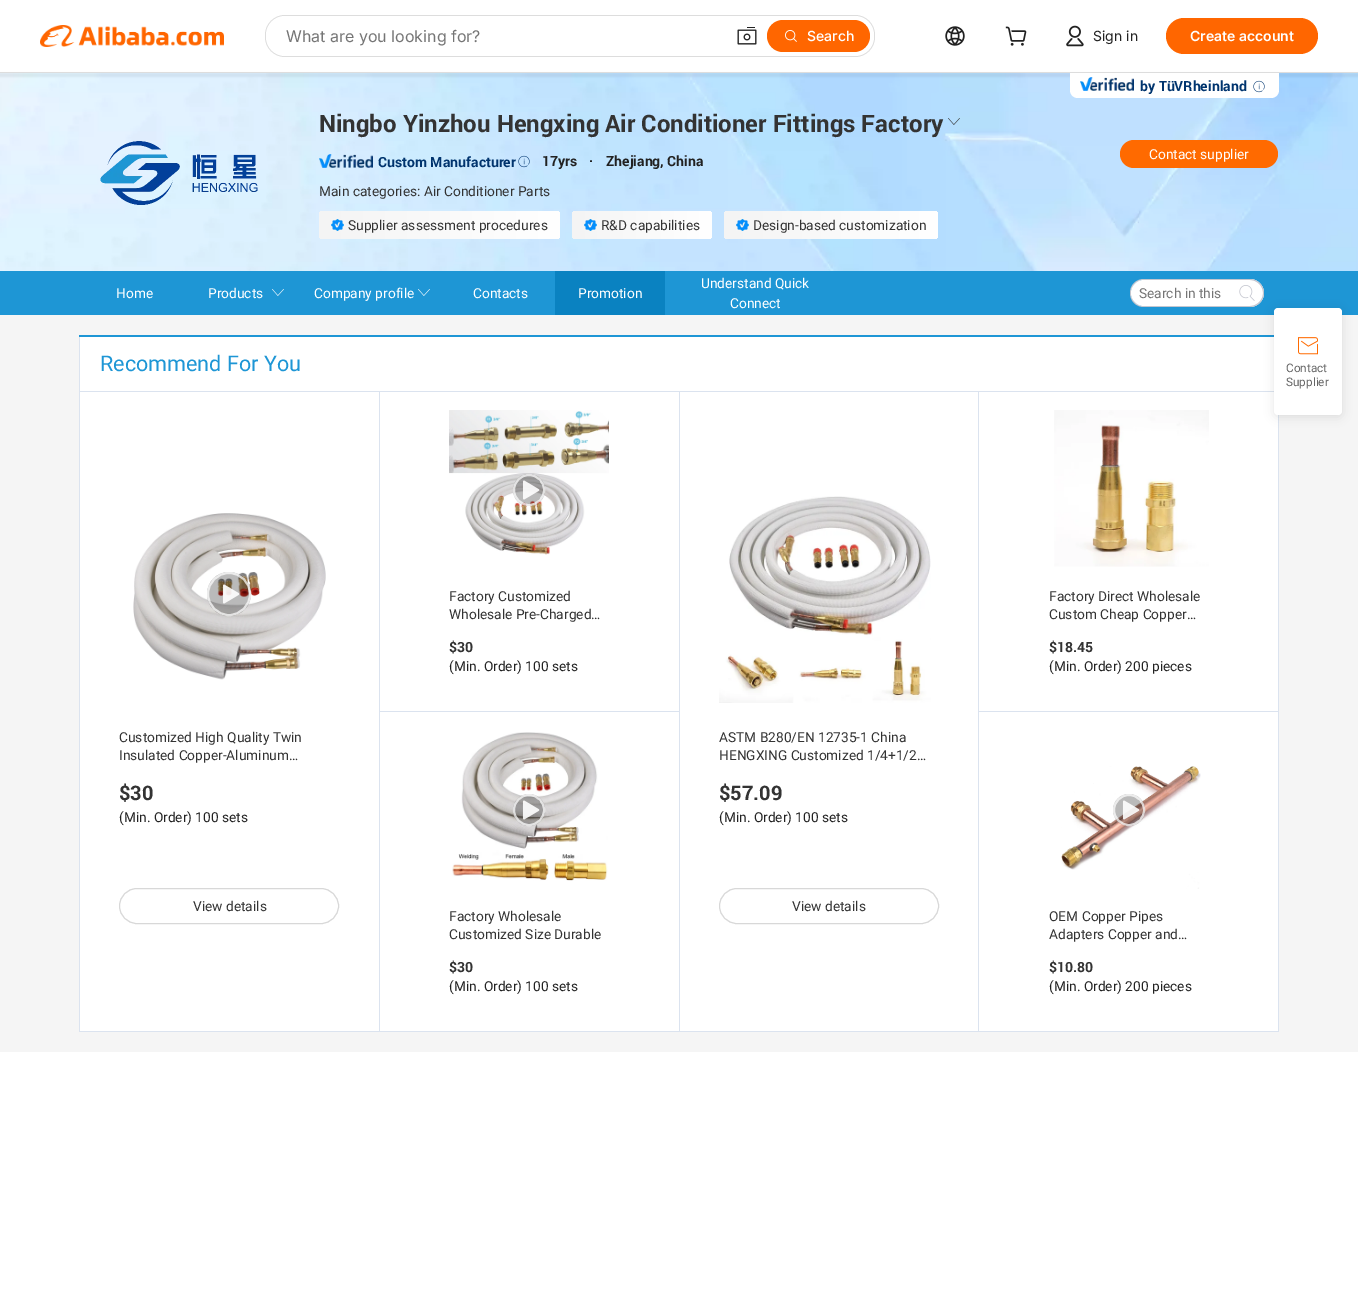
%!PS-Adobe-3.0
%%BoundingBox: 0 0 1358 1313
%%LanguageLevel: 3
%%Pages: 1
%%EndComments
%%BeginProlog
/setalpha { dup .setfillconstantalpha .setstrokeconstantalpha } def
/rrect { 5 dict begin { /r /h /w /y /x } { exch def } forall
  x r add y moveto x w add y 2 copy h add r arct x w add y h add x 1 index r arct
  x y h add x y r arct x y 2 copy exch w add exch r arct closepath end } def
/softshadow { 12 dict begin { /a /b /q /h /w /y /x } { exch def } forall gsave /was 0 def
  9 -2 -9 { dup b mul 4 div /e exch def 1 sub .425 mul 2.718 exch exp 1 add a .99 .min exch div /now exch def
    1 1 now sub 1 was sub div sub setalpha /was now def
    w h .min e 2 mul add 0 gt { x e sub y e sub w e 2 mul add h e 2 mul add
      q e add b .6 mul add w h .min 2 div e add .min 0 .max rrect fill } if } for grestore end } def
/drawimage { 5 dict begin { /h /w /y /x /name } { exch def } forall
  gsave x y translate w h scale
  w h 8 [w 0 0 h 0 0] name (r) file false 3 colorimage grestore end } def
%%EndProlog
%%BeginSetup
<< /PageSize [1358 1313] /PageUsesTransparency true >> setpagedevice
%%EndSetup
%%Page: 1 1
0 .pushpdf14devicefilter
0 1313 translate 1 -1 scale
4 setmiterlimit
1 setgray
0 0 1358 1313 rectfill
(images/7.raw) 0 73 1358 198 drawimage
0 setgray
-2 73 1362 4 0 1 0.05 softshadow
0.867 setgray
0 72 1358 1 rectfill
(images/1.raw) 40 25 184 22 drawimage
265 15 610 42 20 rrect fill
1 setgray
266 16 608 40 19 rrect fill
(images/2.raw) 737 27 20 18 drawimage
1 0.4 0 setrgbcolor
767 20 103 32 16 rrect fill
(images/3.raw) 785 30 12 12 drawimage
(images/4.raw) 945 26 20 20 drawimage
(images/5.raw) 1005 26 22 20 drawimage
(images/6.raw) 1066 25 18 22 drawimage
1166 18 152 36 18 rrect fill
0.961 setgray
0 315 1358 737 rectfill
1 setgray
newpath 1070 73 moveto 1279 73 lineto 1279 90 lineto 1279 94.5 1275.5 98 1271 98 curveto 1078 98 lineto 1073.5 98 1070 94.5 1070 90 curveto closepath fill
(images/8.raw) 1080 77 54 14 drawimage
(images/9.raw) 1253 80 12 13 drawimage
(images/10.raw) 100 141 158 64 drawimage
(images/11.raw) 948 118 12 7 drawimage
(images/12.raw) 319 154 54 14 drawimage
(images/13.raw) 518 155 12 13 drawimage
gsave 319 211 241 28 4 rrect clip newpath
<< /ShadingType 2 /ColorSpace /DeviceRGB /Coords [560 225 319 225] /Extend [true true] /Function << /FunctionType 2 /Domain [0 1] /C0 [1 1 1] /C1 [0.957 0.957 0.957] /N 1 >> >> shfill grestore
(images/14.raw) 331 219 13 12 drawimage
gsave 572 211 140 28 4 rrect clip newpath
<< /ShadingType 2 /ColorSpace /DeviceRGB /Coords [712 225 572 225] /Extend [true true] /Function << /FunctionType 2 /Domain [0 1] /C0 [1 1 1] /C1 [0.957 0.957 0.957] /N 1 >> >> shfill grestore
(images/15.raw) 584 219 13 12 drawimage
gsave 724 211 214 28 4 rrect clip newpath
<< /ShadingType 2 /ColorSpace /DeviceRGB /Coords [938 225 724 225] /Extend [true true] /Function << /FunctionType 2 /Domain [0 1] /C0 [1 1 1] /C1 [0.957 0.957 0.957] /N 1 >> >> shfill grestore
(images/14.raw) 736 219 13 12 drawimage
1 0.416 0 setrgbcolor
1120 140 158 28 14 rrect fill
0.118 0.588 0.835 setrgbcolor
0 271 1358 44 rectfill
(images/16.raw) 272 289 12 7 drawimage
(images/16.raw) 418 289 12 7 drawimage
0.039 0.51 0.757 setrgbcolor
555 271 110 44 rectfill
0.769 0.776 0.812 setrgbcolor
newpath 1144 279 moveto 1231 279 lineto 1231 307 lineto 1144 307 lineto 1136 307 1130 301 1130 293 curveto 1130 285 1136 279 1144 279 curveto closepath 1144 280 moveto 1231 280 lineto 1231 306 lineto 1144 306 lineto 1137 306 1131 300 1131 293 curveto 1131 286 1137 280 1144 280 curveto closepath eofill
1 setgray
newpath 1144 280 moveto 1230.5 280 lineto 1231 280 1231 280 1231 280.5 curveto 1231 305.5 lineto 1231 306 1231 306 1230.5 306 curveto 1144 306 lineto 1137 306 1131 300 1131 293 curveto 1131 286 1137 280 1144 280 curveto closepath fill
newpath 1231 279 moveto 1250 279 lineto 1257.5 279 1264 285.5 1264 293 curveto 1264 300.5 1257.5 307 1250 307 curveto 1231 307 lineto closepath fill
0.769 0.776 0.812 setrgbcolor
newpath 1231 279 moveto 1250 279 lineto 1257.5 279 1264 285.5 1264 293 curveto 1264 300.5 1257.5 307 1250 307 curveto 1231 307 lineto closepath 1231 280 moveto 1250 280 lineto 1257 280 1263 286 1263 293 curveto 1263 300 1257 306 1250 306 curveto 1231 306 lineto closepath eofill
(images/17.raw) 1239 285 16 16 drawimage
1 setgray
80 337 1198 694 rectfill
0.118 0.588 0.835 setrgbcolor
79 335 1200 2 rectfill
0.859 0.89 0.937 setrgbcolor
79 391 1200 1 rectfill
79 337 1 55 rectfill
(images/18.raw) 449 410 160 145 drawimage
0.27 setalpha
0 setgray
newpath 529 490 16 0 360 arc closepath fill
0.72 setalpha
1 setgray
2 setlinewidth
newpath 529 490 15 0 360 arc closepath stroke
1 setalpha
(images/19.raw) 523 480 17 20 drawimage
(images/20.raw) 1054 410 155 157 drawimage
0.859 0.89 0.937 setrgbcolor
978 711 301 1 rectfill
1278 415 1 617 rectfill
978 1031 301 1 rectfill
978 392 1 640 rectfill
379 1031 600 1 rectfill
379 711 301 1 rectfill
379 392 1 640 rectfill
79 1031 301 1 rectfill
79 392 1 640 rectfill
(images/21.raw) 133 513 193 167 drawimage
0.27 setalpha
0 setgray
newpath 229 594 22 0 360 arc closepath fill
0.72 setalpha
1 setgray
newpath 229 594 21 0 360 arc closepath stroke
1 setalpha
(images/22.raw) 222 584 18 20 drawimage
0.847 setgray
1 setlinewidth
119.5 888.5 219 35 17.5 rrect stroke
0.859 0.89 0.937 setrgbcolor
679 392 1 640 rectfill
(images/23.raw) 719 496 212 207 drawimage
0.847 setgray
719.5 888.5 219 35 17.5 rrect stroke
(images/24.raw) 452 732 156 149 drawimage
0.27 setalpha
0 setgray
newpath 529 810 16 0 360 arc closepath fill
0.72 setalpha
1 setgray
2 setlinewidth
newpath 529 810 15 0 360 arc closepath stroke
1 setalpha
(images/25.raw) 522 800 18 20 drawimage
(images/26.raw) 1061 766 140 123 drawimage
0.27 setalpha
0 setgray
newpath 1129 810 16 0 360 arc closepath fill
0.72 setalpha
1 setgray
newpath 1129 810 15 0 360 arc closepath stroke
1 setalpha
(images/27.raw) 1122 800 18 20 drawimage
0 setgray
1274 310 68 107 4 5 0.1 softshadow
1 setgray
1274 308 68 107 4 rrect fill
(images/28.raw) 1298 337 20 18 drawimage
/Inter-Regular [16 0 0 -16 0 0] selectfont
0.459 setgray
286 42 moveto (What are you looking for?) show
/Inter-Medium [14 0 0 -14 0 0] selectfont
1 setgray
807 41 moveto (Search) show
/Inter-Regular [14 0 0 -14 0 0] selectfont
0.133 setgray
1093 41 moveto (Sign in) show
/Inter-SemiBold [14 0 0 -14 0 0] selectfont
1 setgray
1190 41 moveto (Create account) show
/Roboto-Bold [14 0 0 -14 0 0] selectfont
0 0.204 0.431 setrgbcolor
1140 91 moveto (by TüVRheinland) show
/Roboto-Bold [24 0 0 -24 0 0] selectfont
0.2 setgray
319 132 moveto (Ningbo Yinzhou Hengxing Air Conditioner Fittings Factory) show
/Roboto-Bold [14 0 0 -14 0 0] selectfont
0 0.204 0.431 setrgbcolor
378 167 moveto (Custom Manufacturer) show
0.133 setgray
542 166 moveto (17yrs) show
589 166 moveto (·) show
606 166 moveto (Zhejiang, China) show
/Roboto-Regular [14 0 0 -14 0 0] selectfont
0.2 setgray
319 196 moveto (Main categories: Air Conditioner Parts) show
348 230 moveto (Supplier assessment procedures) show
601 230 moveto (R&D capabilities) show
753 230 moveto (Design-based customization) show
1 setgray
1149 159 moveto (Contact supplier) show
116 298 moveto (Home) show
208 298 moveto (Products) show
314 298 moveto (Company profile) show
473 298 moveto (Contacts) show
578 298 moveto (Promotion) show
701 288 moveto (Understand Quick) show
730 308 moveto (Connect) show
0.459 setgray
1139 298 moveto (Search in this) show
/Roboto-Regular [22 0 0 -22 0 0] selectfont
0.118 0.588 0.835 setrgbcolor
100 371 moveto (Recommend For You) show
/Roboto-Regular [14 0 0 -14 0 0] selectfont
0.2 setgray
449 601 moveto (Factory Customized) show
449 619 moveto (Wholesale Pre-Charged…) show
/Roboto-Bold [14 0 0 -14 0 0] selectfont
449 652 moveto ($30) show
/Roboto-Regular [14 0 0 -14 0 0] selectfont
0.133 setgray
449 671 moveto (\(Min. Order\) 100 sets) show
0.2 setgray
1049 601 moveto (Factory Direct Wholesale) show
1049 619 moveto (Custom Cheap Copper…) show
/Roboto-Bold [14 0 0 -14 0 0] selectfont
1049 652 moveto ($18.45) show
/Roboto-Regular [14 0 0 -14 0 0] selectfont
0.133 setgray
1049 671 moveto (\(Min. Order\) 200 pieces) show
0.2 setgray
119 742 moveto (Customized High Quality Twin) show
119 760 moveto (Insulated Copper-Aluminum…) show
/Roboto-Bold [20 0 0 -20 0 0] selectfont
119 800 moveto ($30) show
/Roboto-Regular [14 0 0 -14 0 0] selectfont
0.133 setgray
119 822 moveto (\(Min. Order\) 100 sets) show
0.2 setgray
193 911 moveto (View details) show
719 742 moveto (ASTM B280/EN 12735-1 China) show
719 760 moveto (HENGXING Customized 1/4+1/2…) show
/Roboto-Bold [20 0 0 -20 0 0] selectfont
719 800 moveto ($57.09) show
/Roboto-Regular [14 0 0 -14 0 0] selectfont
0.133 setgray
719 822 moveto (\(Min. Order\) 100 sets) show
0.2 setgray
792 911 moveto (View details) show
449 921 moveto (Factory Wholesale) show
449 939 moveto (Customized Size Durable) show
/Roboto-Bold [14 0 0 -14 0 0] selectfont
449 972 moveto ($30) show
/Roboto-Regular [14 0 0 -14 0 0] selectfont
0.133 setgray
449 991 moveto (\(Min. Order\) 100 sets) show
0.2 setgray
1049 921 moveto (OEM Copper Pipes) show
1049 939 moveto (Adapters Copper and…) show
/Roboto-Bold [14 0 0 -14 0 0] selectfont
1049 972 moveto ($10.80) show
/Roboto-Regular [14 0 0 -14 0 0] selectfont
0.133 setgray
1049 991 moveto (\(Min. Order\) 200 pieces) show
/Roboto-Regular [12 0 0 -12 0 0] selectfont
0.4 setgray
1286 372 moveto (Contact) show
1286 386 moveto (Supplier) show
.poppdf14devicefilter showpage
%%EOF
